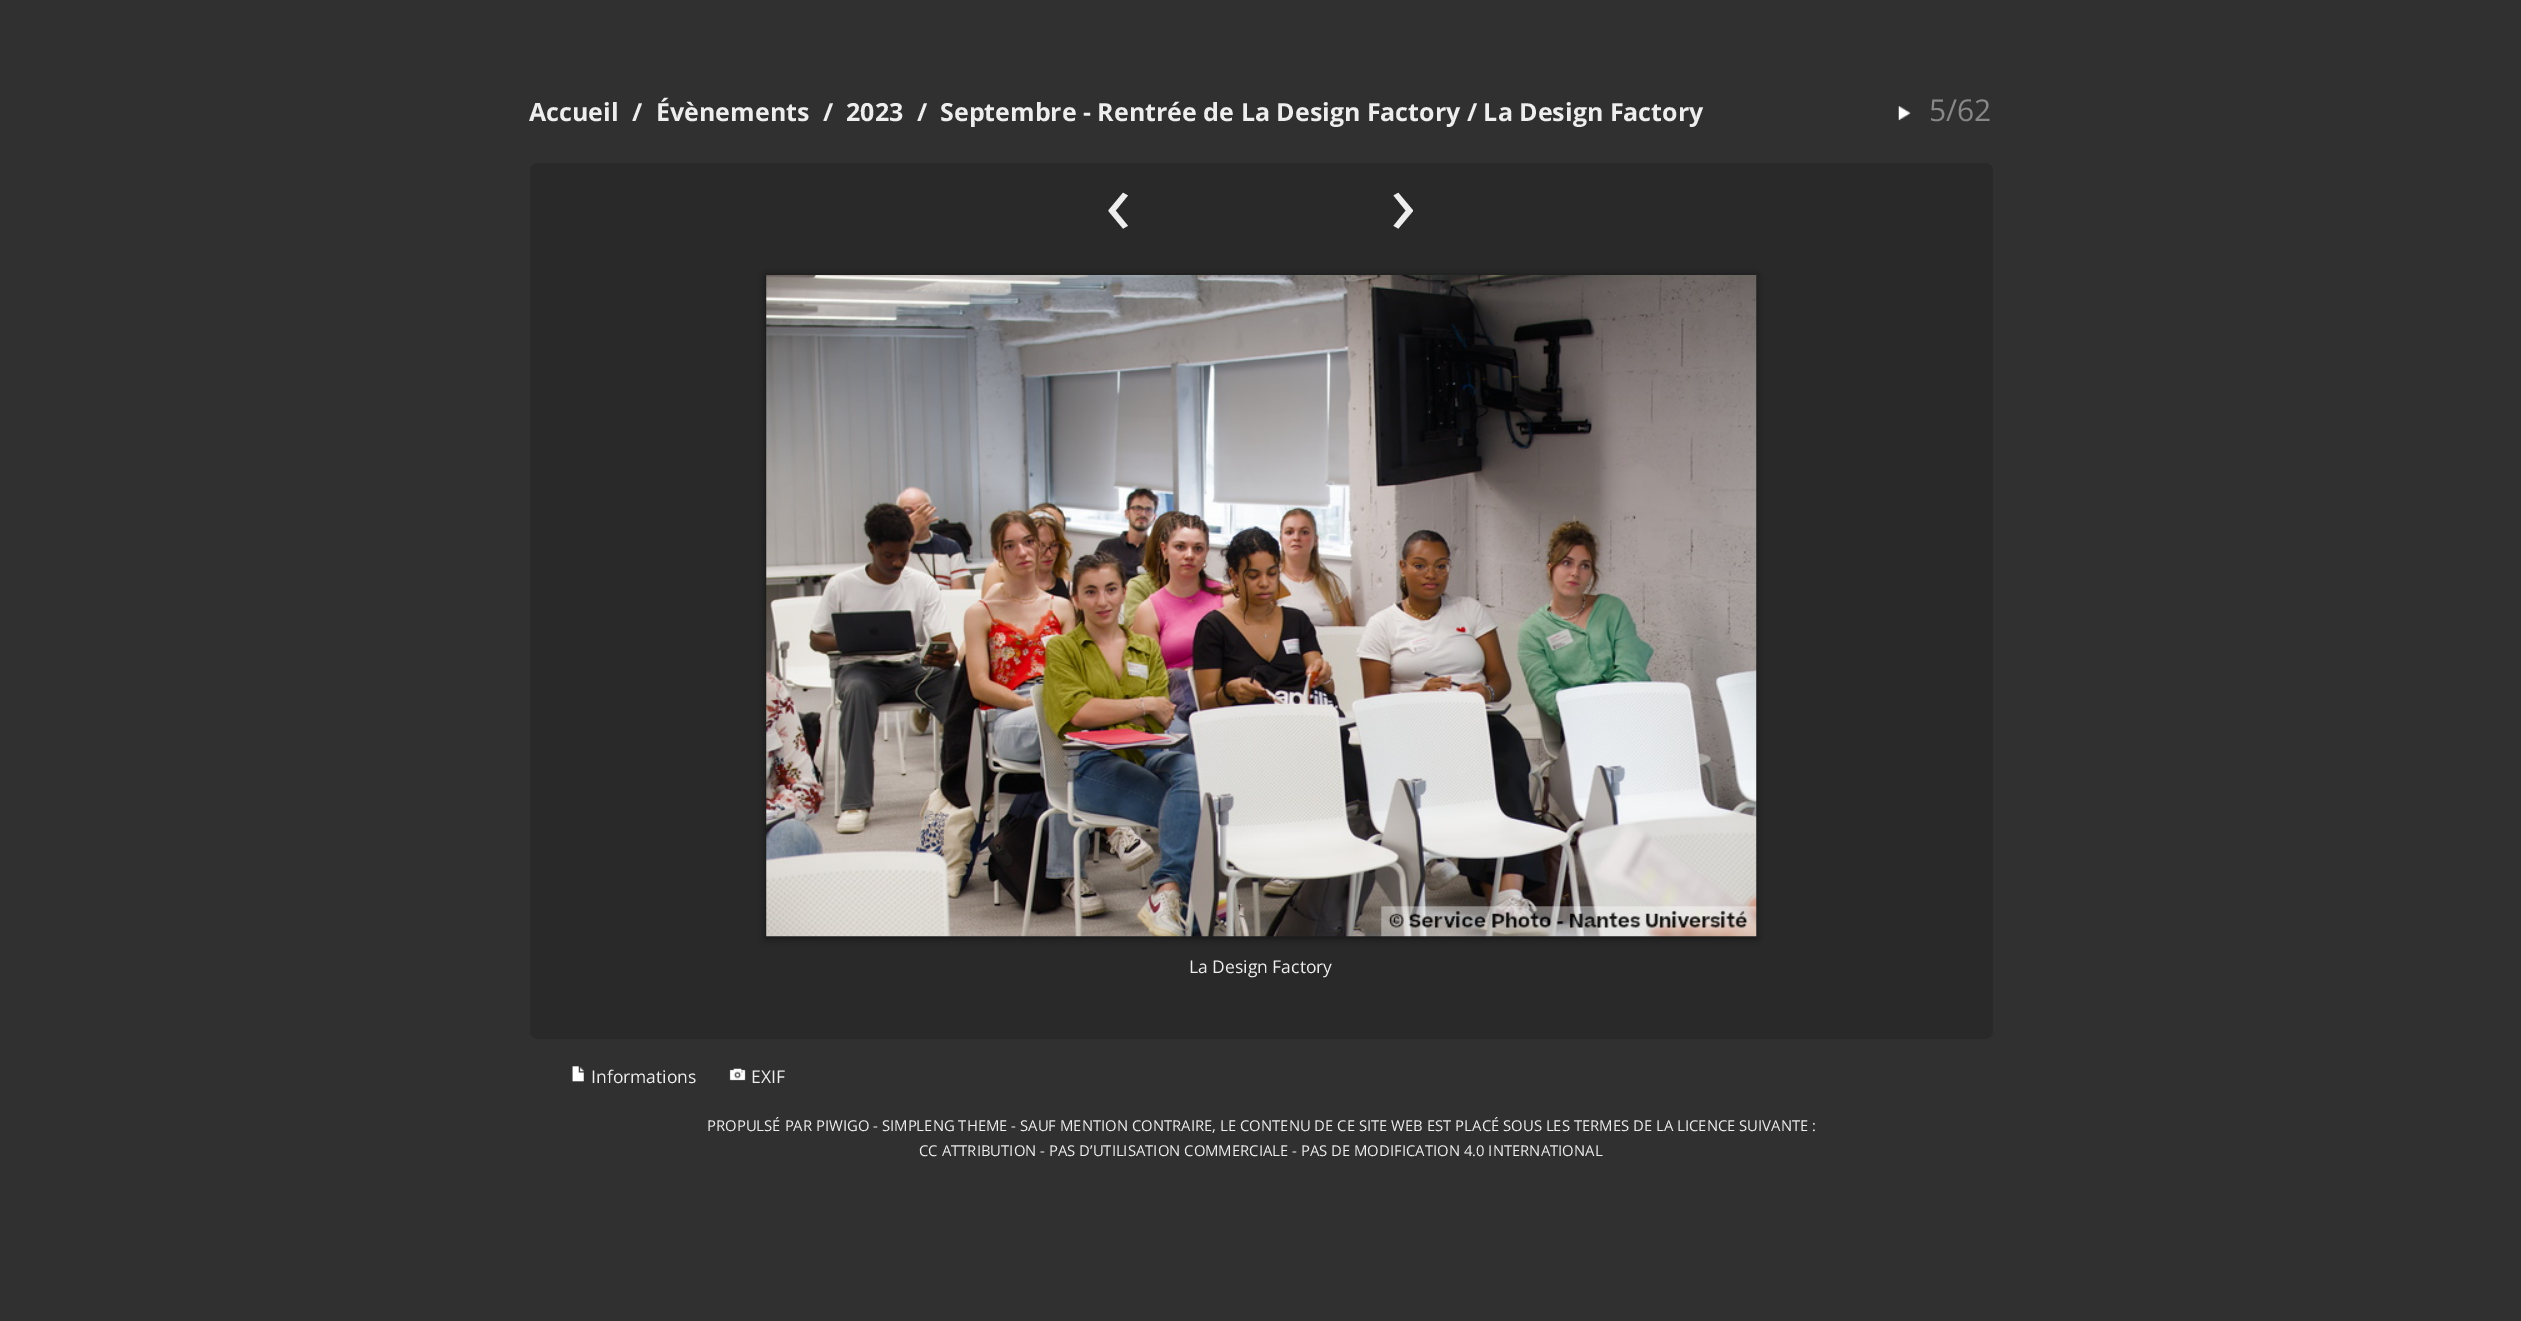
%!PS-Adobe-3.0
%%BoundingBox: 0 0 2521 1321
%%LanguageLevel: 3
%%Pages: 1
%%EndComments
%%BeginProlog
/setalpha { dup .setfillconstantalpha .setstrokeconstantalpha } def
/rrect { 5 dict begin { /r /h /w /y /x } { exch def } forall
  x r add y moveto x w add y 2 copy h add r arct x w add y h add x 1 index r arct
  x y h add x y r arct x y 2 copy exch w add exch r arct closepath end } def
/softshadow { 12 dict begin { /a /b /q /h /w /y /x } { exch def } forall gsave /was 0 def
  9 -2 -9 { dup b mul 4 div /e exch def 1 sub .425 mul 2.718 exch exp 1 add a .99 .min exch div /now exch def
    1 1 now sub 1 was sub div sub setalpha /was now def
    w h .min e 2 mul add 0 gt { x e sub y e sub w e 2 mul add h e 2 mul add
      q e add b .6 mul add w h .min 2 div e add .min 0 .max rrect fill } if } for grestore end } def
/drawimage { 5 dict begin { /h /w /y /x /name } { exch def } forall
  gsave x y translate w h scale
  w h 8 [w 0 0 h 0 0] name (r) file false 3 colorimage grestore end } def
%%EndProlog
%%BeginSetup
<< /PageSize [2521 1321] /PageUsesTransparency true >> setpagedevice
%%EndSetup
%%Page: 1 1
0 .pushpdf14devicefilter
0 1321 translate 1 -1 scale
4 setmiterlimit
0.188 setgray
0 0 2521 1321 rectfill
(images/1.raw) 1898 106 13 15 drawimage
0.161 setgray
530 163 1463 876 8 rrect fill
0 setgray
766 276 990 662 0 4 0.6 softshadow
(images/2.raw) 766 275 991 662 drawimage
(images/3.raw) 572 1066 12 16 drawimage
(images/4.raw) 729 1068 17 13 drawimage
/OpenSans-Bold [25 0 0 -25 0 0] selectfont
0.933 setgray
529 121 moveto (Accueil) show
632 121 moveto (/) show
656 121 moveto (Évènements) show
823 121 moveto (/) show
846 121 moveto (2023) show
917 121 moveto (/) show
940 121 moveto (Septembre - Rentrée de La Design Factory / La Design Factory) show
/OpenSans-Regular [30 0 0 -30 0 0] selectfont
0.533 setgray
1929 121 moveto (5/62) show
/OpenSans-Regular [88 0 0 -88 0 0] selectfont
0.933 setgray
1105 234 moveto (‹) show
1390 234 moveto (›) show
/OpenSans-Regular [17.5 0 0 -17.5 0 0] selectfont
1189 973 moveto (La Design Factory) show
591 1083 moveto (Informations) show
751 1083 moveto (EXIF) show
/OpenSans-Regular [14.88 0 0 -14.88 0 0] selectfont
707 1131 moveto (PROPULSÉ PAR PIWIGO - SIMPLENG THEME - SAUF MENTION CONTRAIRE, LE CONTENU DE CE SITE WEB EST PLACÉ SOUS LES TERMES DE LA LICENCE SUIVANTE :) show
919 1156 moveto (CC ATTRIBUTION - PAS D’UTILISATION COMMERCIALE - PAS DE MODIFICATION 4.0 INTERNATIONAL) show
.poppdf14devicefilter showpage
%%EOF
